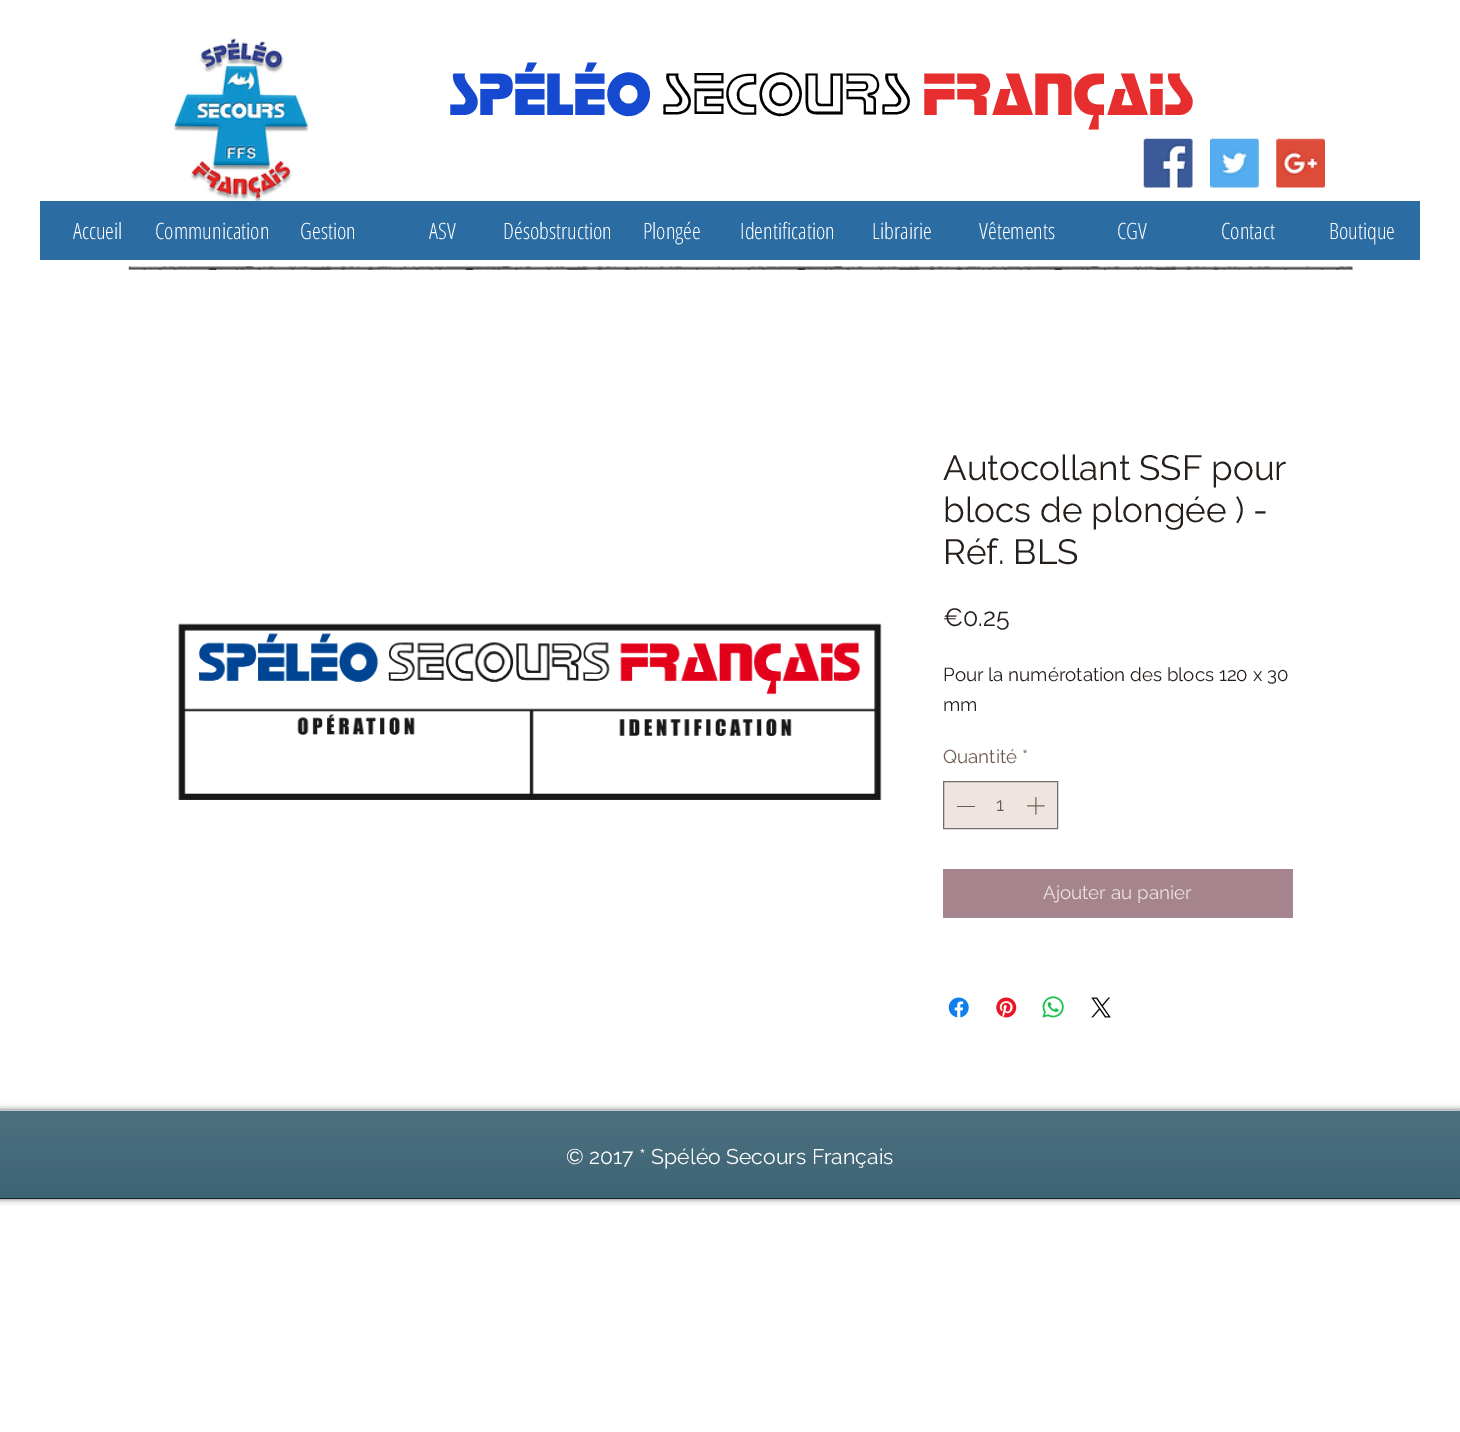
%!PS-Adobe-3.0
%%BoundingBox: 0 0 1460 1432
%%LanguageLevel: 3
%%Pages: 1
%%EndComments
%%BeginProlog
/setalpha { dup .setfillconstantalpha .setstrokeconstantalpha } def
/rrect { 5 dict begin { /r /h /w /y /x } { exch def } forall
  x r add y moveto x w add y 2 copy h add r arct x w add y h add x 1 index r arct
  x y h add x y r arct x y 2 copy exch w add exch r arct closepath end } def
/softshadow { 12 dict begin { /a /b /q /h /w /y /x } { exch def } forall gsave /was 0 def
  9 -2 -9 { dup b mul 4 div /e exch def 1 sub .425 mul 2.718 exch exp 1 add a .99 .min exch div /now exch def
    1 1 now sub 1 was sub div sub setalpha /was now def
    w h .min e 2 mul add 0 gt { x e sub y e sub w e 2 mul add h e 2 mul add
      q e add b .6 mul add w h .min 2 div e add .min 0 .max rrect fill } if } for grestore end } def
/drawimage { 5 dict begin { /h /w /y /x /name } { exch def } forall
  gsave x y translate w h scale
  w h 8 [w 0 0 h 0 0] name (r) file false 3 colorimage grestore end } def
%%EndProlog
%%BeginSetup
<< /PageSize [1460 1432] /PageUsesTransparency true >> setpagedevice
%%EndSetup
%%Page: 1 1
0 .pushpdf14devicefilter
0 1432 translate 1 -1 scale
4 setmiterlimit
1 setgray
0 0 1460 1432 rectfill
(images/1.raw) 173 38 136 163 drawimage
(images/2.raw) 1143 138 50 50 drawimage
(images/3.raw) 1210 138 49 50 drawimage
(images/4.raw) 1276 138 49 50 drawimage
0.169 0.424 0.639 setrgbcolor
40 201 1380 59 rectfill
(images/5.raw) 128 266 1225 4 drawimage
(images/6.raw) 178 623 704 177 drawimage
0.933 0.894 0.878 setrgbcolor
newpath 943.5 781.5 moveto 1057.5 781.5 lineto 1057.5 828.5 lineto 943.5 828.5 lineto closepath gsave fill grestore
0.459 0.427 0.416 setrgbcolor
stroke
0.431 0.353 0.318 setrgbcolor
957 806 18 1 rectfill
(images/7.raw) 1027 797 18 18 drawimage
0.647 0.518 0.553 setrgbcolor
943 869 350 49 rectfill
(images/8.raw) 948 997 21 21 drawimage
(images/9.raw) 996 997 21 21 drawimage
(images/10.raw) 1042 996 22 22 drawimage
(images/11.raw) 1091 997 20 21 drawimage
0 setgray
0 1110 1460 89 0 3 0.6 softshadow
0.063 0.247 0.329 setrgbcolor
0 1111 1460 87 rectfill
(images/12.raw) 0 1111 1460 87 drawimage
0.078 0.141 0.169 setrgbcolor
0 1198 1460 1 rectfill
0.722 0.776 0.8 setrgbcolor
0 1110 1460 1 rectfill
/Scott-Regular [62.5 0 0 -62.5 0 0] selectfont
0.082 0.286 0.812 setrgbcolor
449 115 moveto (SPéléo) show
/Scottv-Regular [62.5 0 0 -62.5 0 0] selectfont
0 setgray
662 115 moveto (secours) show
/Scott-Regular [62.5 0 0 -62.5 0 0] selectfont
0.902 0.18 0.18 setrgbcolor
923 115 moveto (français) show
/OpenSansCondensed-Light [22.5 0 0 -22.5 0 0] selectfont
1 setgray
73 239 moveto (Accueil) show
155 239 moveto (Communication) show
300 239 moveto (Gestion) show
429 239 moveto (ASV) show
503 239 moveto (Désobstruction) show
643 239 moveto (Plongée) show
740 239 moveto (Identification) show
872 239 moveto (Librairie) show
979 239 moveto (Vêtements) show
1117 239 moveto (CGV) show
1221 239 moveto (Contact) show
1329 239 moveto (Boutique) show
/Raleway-Regular [35 0 0 -35 0 0] selectfont
0.145 0.118 0.106 setrgbcolor
943 480 moveto (Autocollant SSF pour) show
943 522 moveto (blocs de plongée \) -) show
943 564 moveto (Réf. BLS) show
/Raleway-Regular [25 0 0 -25 0 0] selectfont
943 626 moveto (€0.25) show
/Raleway-Regular [18.75 0 0 -18.75 0 0] selectfont
943 681 moveto (Pour la numérotation des blocs 120 x 30) show
943 711 moveto (mm) show
0.431 0.353 0.318 setrgbcolor
943 763 moveto (Quantité *) show
996 811 moveto (1) show
0.933 0.894 0.878 setrgbcolor
1043 899 moveto (Ajouter au panier) show
/Raleway-Regular [21.25 0 0 -21.25 0 0] selectfont
1 setgray
566 1164 moveto (© 2017 * Spéléo Secours Français) show
.poppdf14devicefilter showpage
%%EOF
